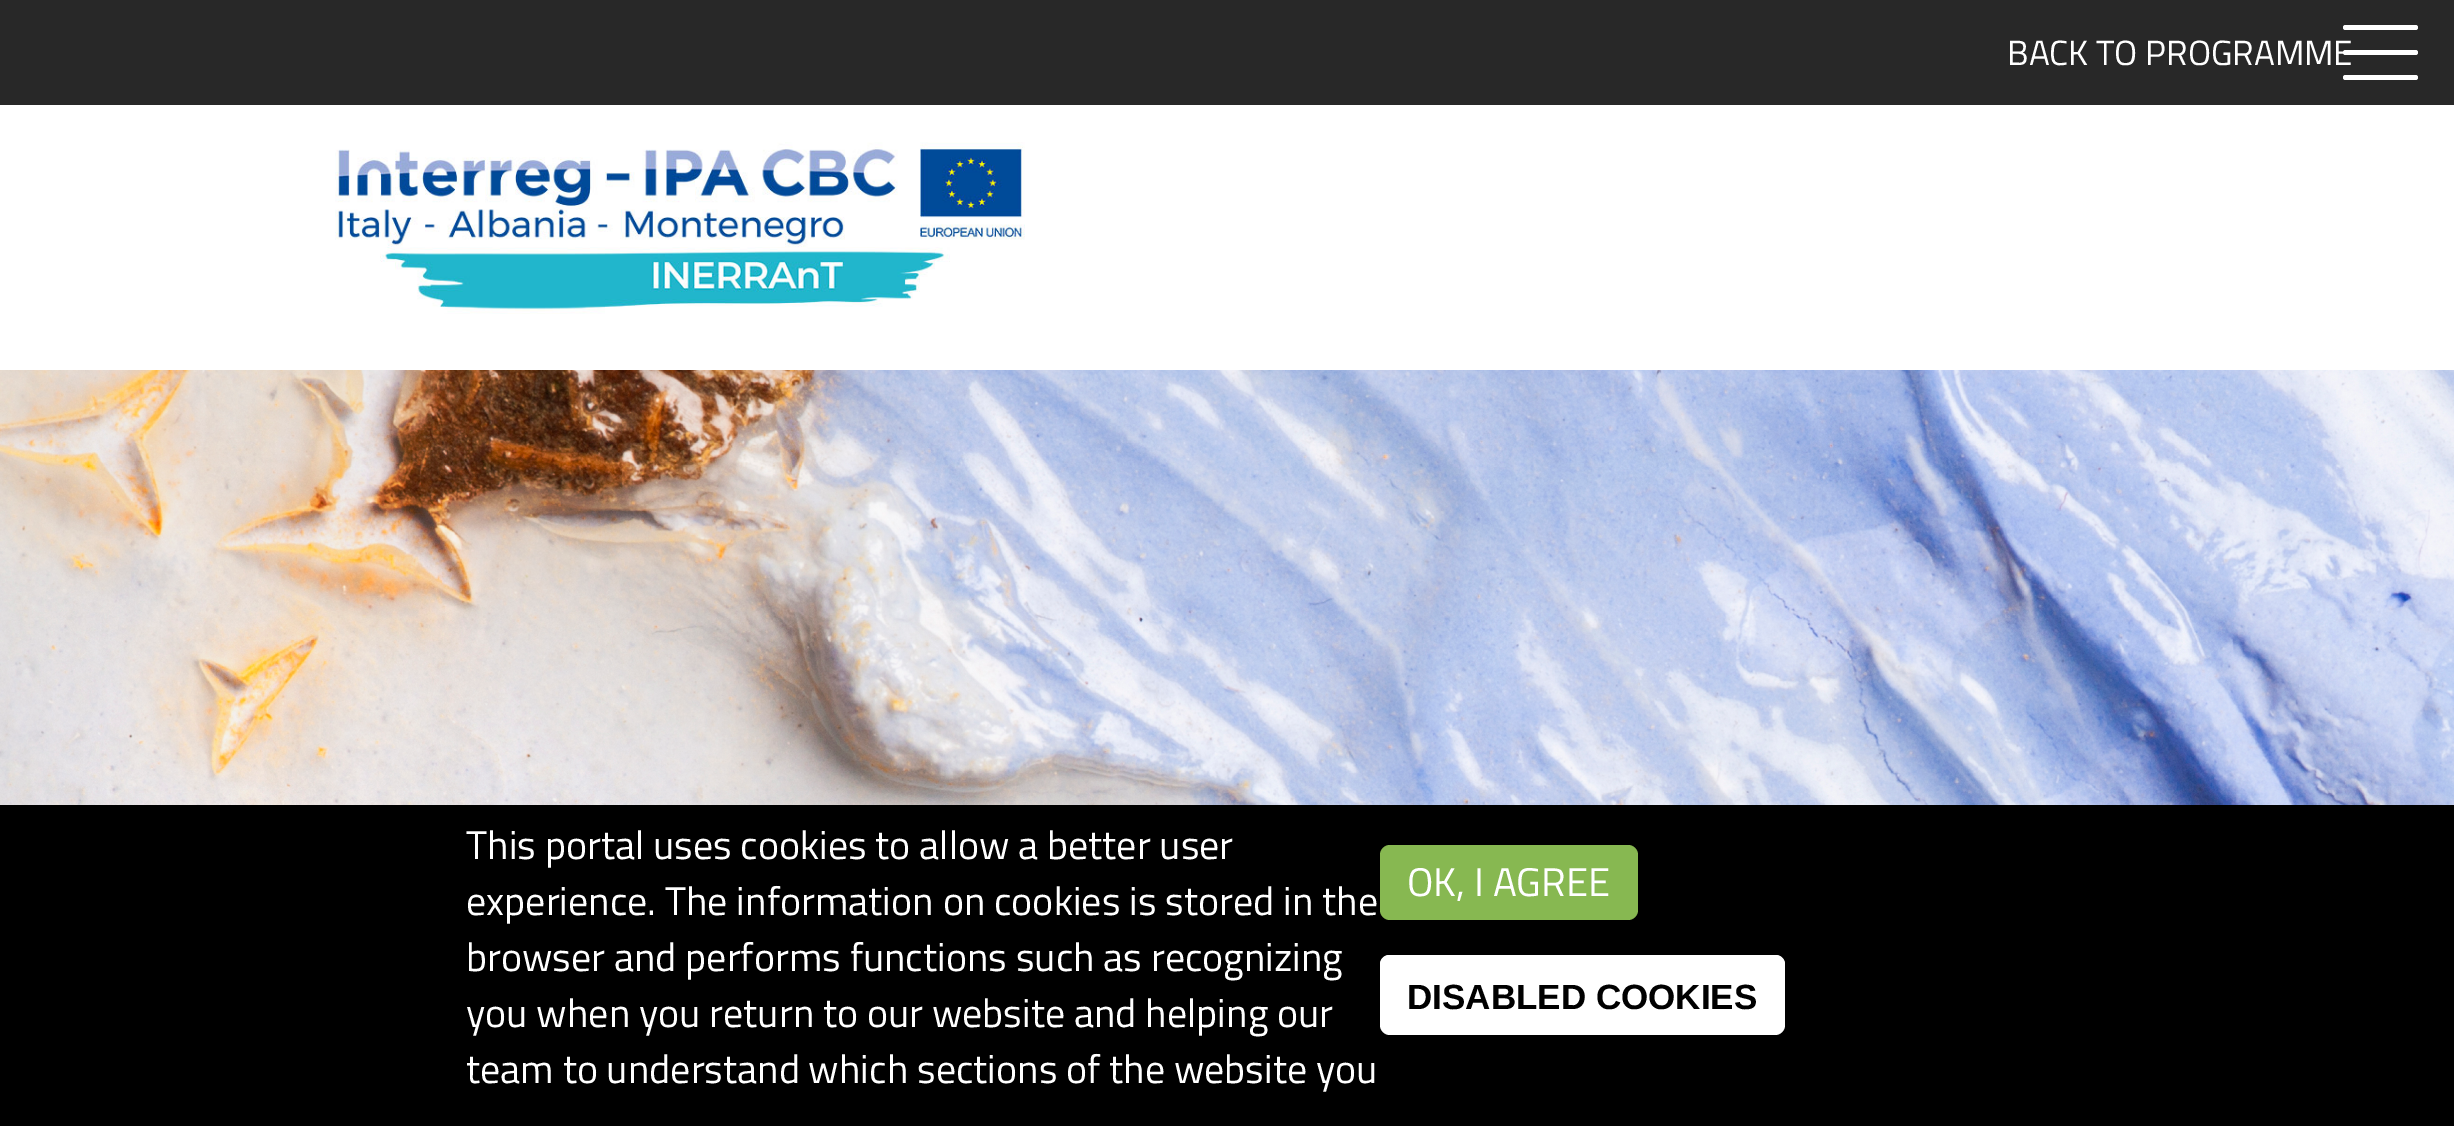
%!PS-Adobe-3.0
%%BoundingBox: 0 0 2454 1126
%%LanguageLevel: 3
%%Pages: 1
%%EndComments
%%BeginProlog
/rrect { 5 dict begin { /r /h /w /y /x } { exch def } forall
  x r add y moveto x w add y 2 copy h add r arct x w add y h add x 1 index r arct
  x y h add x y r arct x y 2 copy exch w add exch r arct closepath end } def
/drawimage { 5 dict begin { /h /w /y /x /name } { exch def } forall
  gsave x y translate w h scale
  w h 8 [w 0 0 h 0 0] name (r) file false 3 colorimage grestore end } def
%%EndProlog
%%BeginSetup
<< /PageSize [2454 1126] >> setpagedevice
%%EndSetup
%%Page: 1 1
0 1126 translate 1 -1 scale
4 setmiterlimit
1 setgray
0 0 2454 1126 rectfill
0.157 setgray
0 0 2454 105 rectfill
(images/1.raw) 335 142 690 172 drawimage
(images/2.raw) 0 370 2454 435 drawimage
1 setgray
2343 25 75 5 2.5 rrect fill
2343 50 75 5 2.5 rrect fill
2343 75 75 5 2.5 rrect fill
0 setgray
0 805 2454 321 rectfill
0.529 0.722 0.318 setrgbcolor
1380 845 258 75 10 rrect fill
1 setgray
1380 955 405 80 10 rrect fill
newpath 1390 958 moveto 1775 958 lineto 1781 958 1785 962 1785 968 curveto 1785 965 lineto 1785 959 1781 955 1775 955 curveto 1390 955 lineto 1384 955 1380 959 1380 965 curveto 1380 968 lineto 1380 962 1384 958 1390 958 curveto closepath fill
/TitilliumWeb-Regular [35 0 0 -35 0 0] selectfont
2007 65 moveto (BACK TO PROGRAMME) show
/TitilliumWeb-Regular [40 0 0 -40 0 0] selectfont
466 859 moveto (This portal uses cookies to allow a better user) show
466 915 moveto (experience. The information on cookies is stored in the) show
466 971 moveto (browser and performs functions such as recognizing) show
466 1027 moveto (you when you return to our website and helping our) show
466 1083 moveto (team to understand which sections of the website you) show
1407 896 moveto (OK, I AGREE) show
/LiberationSans-Bold [35 0 0 -35 0 0] selectfont
0 setgray
1407 1009 moveto (DISABLED COOKIES) show
showpage
%%EOF
